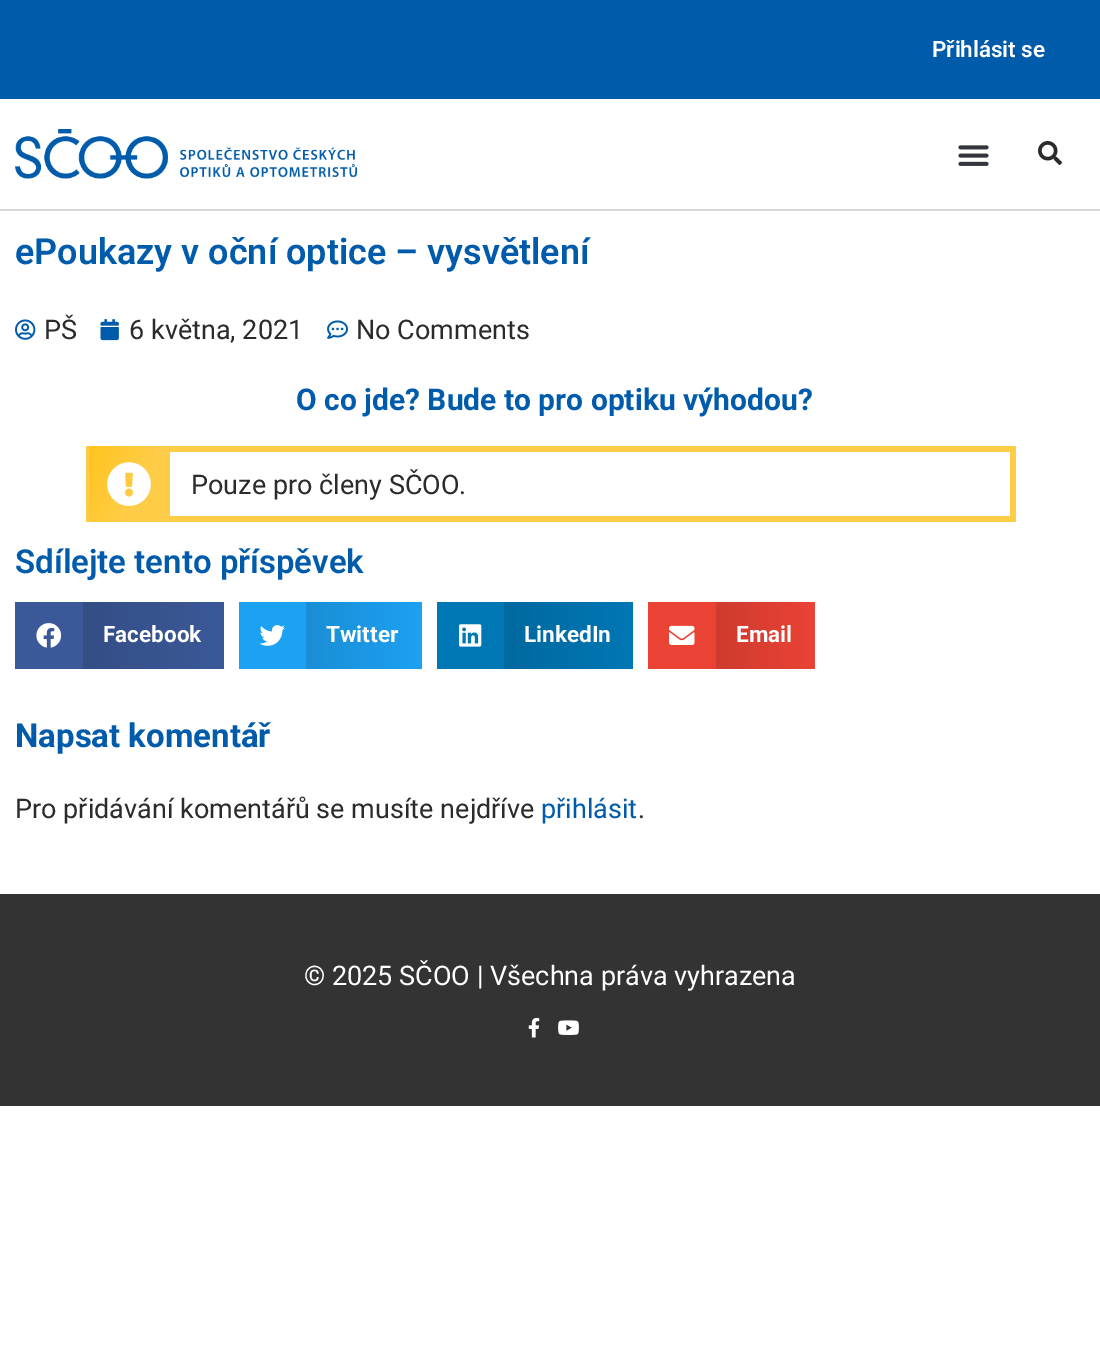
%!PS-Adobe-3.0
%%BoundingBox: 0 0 1100 1349
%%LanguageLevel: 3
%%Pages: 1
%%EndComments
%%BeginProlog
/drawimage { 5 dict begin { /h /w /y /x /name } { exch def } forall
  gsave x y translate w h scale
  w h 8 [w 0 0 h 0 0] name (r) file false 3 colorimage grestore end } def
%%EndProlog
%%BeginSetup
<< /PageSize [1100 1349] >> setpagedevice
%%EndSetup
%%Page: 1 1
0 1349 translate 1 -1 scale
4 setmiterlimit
1 setgray
0 0 1100 1349 rectfill
0 0.357 0.671 setrgbcolor
0 0 1100 99 rectfill
0.847 setgray
0 209 1100 2 rectfill
(images/1.raw) 15 129 342 50 drawimage
(images/2.raw) 958 145 31 21 drawimage
(images/3.raw) 1038 141 24 24 drawimage
(images/4.raw) 15 319 21 21 drawimage
(images/5.raw) 100 319 19 22 drawimage
(images/6.raw) 327 320 21 19 drawimage
1 0.8 0.278 setrgbcolor
170 446 846 6 rectfill
1010 446 6 76 rectfill
170 516 846 6 rectfill
86 446 3 76 rectfill
gsave newpath 89 446 moveto 170 446 lineto 170 522 lineto 89 522 lineto closepath clip newpath
<< /ShadingType 2 /ColorSpace /DeviceRGB /Coords [81 461 177 506] /Extend [true true] /Function << /FunctionType 3 /Domain [0 1] /Functions [<< /FunctionType 2 /Domain [0 1] /C0 [1 0.769 0.114] /C1 [1 0.8 0.278] /N 1 >> << /FunctionType 2 /Domain [0 1] /C0 [1 0.8 0.278] /C1 [1 0.8 0.278] /N 1 >>] /Bounds [0.6] /Encode [0 1 0 1] >> >> shfill grestore
(images/7.raw) 107 462 44 44 drawimage
0.231 0.349 0.596 setrgbcolor
15 602 68 67 rectfill
(images/8.raw) 36 623 26 25 drawimage
gsave newpath 83 602 moveto 224 602 lineto 224 669 lineto 83 669 lineto closepath clip newpath
<< /ShadingType 2 /ColorSpace /DeviceRGB /Coords [83 635 224 635] /Extend [true true] /Function << /FunctionType 2 /Domain [0 1] /C0 [0.204 0.306 0.525] /C1 [0.231 0.349 0.596] /N 1 >> >> shfill grestore
0.114 0.631 0.949 setrgbcolor
239 602 67 67 rectfill
(images/9.raw) 259 625 26 21 drawimage
gsave newpath 306 602 moveto 422 602 lineto 422 669 lineto 306 669 lineto closepath clip newpath
<< /ShadingType 2 /ColorSpace /DeviceRGB /Coords [306 635 422 635] /Extend [true true] /Function << /FunctionType 2 /Domain [0 1] /C0 [0.102 0.557 0.835] /C1 [0.114 0.631 0.949] /N 1 >> >> shfill grestore
0 0.467 0.71 setrgbcolor
437 602 67 67 rectfill
(images/10.raw) 459 624 23 23 drawimage
gsave newpath 504 602 moveto 633 602 lineto 633 669 lineto 504 669 lineto closepath clip newpath
<< /ShadingType 2 /ColorSpace /DeviceRGB /Coords [504 635 633 635] /Extend [true true] /Function << /FunctionType 2 /Domain [0 1] /C0 [0 0.412 0.624] /C1 [0 0.467 0.71] /N 1 >> >> shfill grestore
0.918 0.263 0.208 setrgbcolor
648 602 68 67 rectfill
(images/11.raw) 669 625 26 20 drawimage
gsave newpath 716 602 moveto 815 602 lineto 815 669 lineto 716 669 lineto closepath clip newpath
<< /ShadingType 2 /ColorSpace /DeviceRGB /Coords [716 635 815 635] /Extend [true true] /Function << /FunctionType 2 /Domain [0 1] /C0 [0.808 0.231 0.184] /C1 [0.918 0.263 0.208] /N 1 >> >> shfill grestore
0.2 setgray
0 894 1100 212 rectfill
(images/12.raw) 528 1017 12 21 drawimage
(images/13.raw) 558 1020 21 15 drawimage
/Roboto-SemiBold [22.5 0 0 -22.5 0 0] selectfont
1 setgray
932 57 moveto (Přihlásit se) show
/Roboto-SemiBold [36 0 0 -36 0 0] selectfont
0 0.357 0.671 setrgbcolor
15 264 moveto (ePoukazy v oční optice – vysvětlení) show
/Roboto-Regular [27 0 0 -27 0 0] selectfont
0.169 setgray
44 339 moveto (PŠ) show
129 339 moveto (6 května, 2021) show
356 339 moveto (No Comments) show
/Roboto-Bold [30 0 0 -30 0 0] selectfont
0 0.357 0.671 setrgbcolor
296 410 moveto (O co jde? Bude to pro optiku výhodou?) show
/Roboto-Regular [27 0 0 -27 0 0] selectfont
0.169 setgray
191 494 moveto (Pouze pro členy SČOO.) show
/Roboto-SemiBold [33 0 0 -33 0 0] selectfont
0 0.357 0.671 setrgbcolor
15 573 moveto (Sdílejte tento příspěvek) show
/Roboto-Bold [22.5 0 0 -22.5 0 0] selectfont
1 setgray
103 642 moveto (Facebook) show
326 642 moveto (Twitter) show
524 642 moveto (LinkedIn) show
736 642 moveto (Email) show
/Roboto-Bold [33 0 0 -33 0 0] selectfont
0 0.357 0.671 setrgbcolor
15 747 moveto (Napsat komentář) show
/Roboto-Regular [27 0 0 -27 0 0] selectfont
0.169 setgray
15 818 moveto (Pro přidávání komentářů se musíte nejdříve) show
0 0.357 0.671 setrgbcolor
541 818 moveto (přihlásit) show
0.169 setgray
638 818 moveto (.) show
1 setgray
304 985 moveto (© 2025 SČOO | Všechna práva vyhrazena) show
showpage
%%EOF
